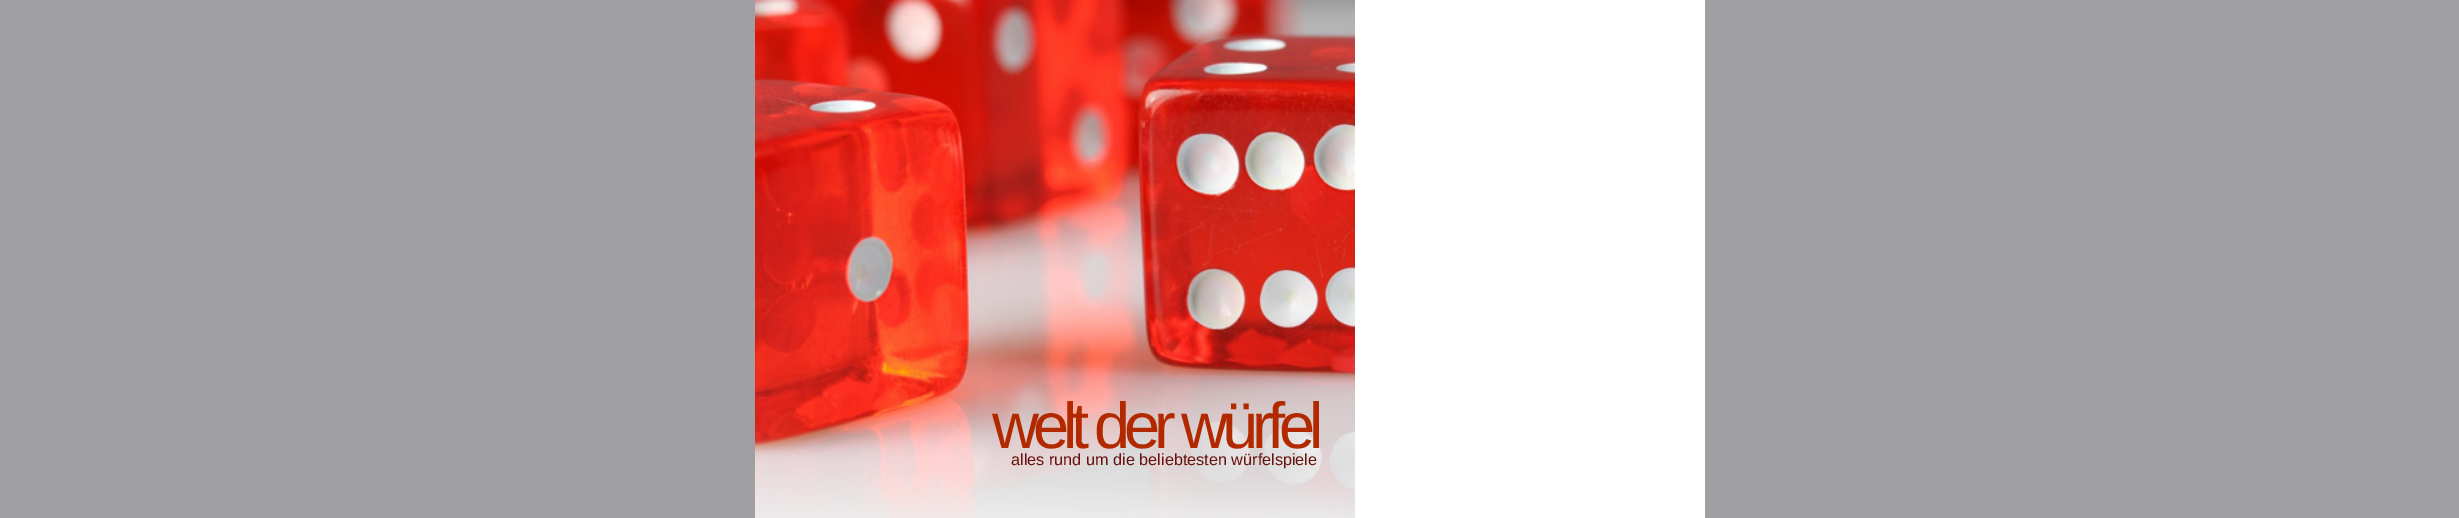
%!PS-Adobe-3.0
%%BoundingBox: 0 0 2459 518
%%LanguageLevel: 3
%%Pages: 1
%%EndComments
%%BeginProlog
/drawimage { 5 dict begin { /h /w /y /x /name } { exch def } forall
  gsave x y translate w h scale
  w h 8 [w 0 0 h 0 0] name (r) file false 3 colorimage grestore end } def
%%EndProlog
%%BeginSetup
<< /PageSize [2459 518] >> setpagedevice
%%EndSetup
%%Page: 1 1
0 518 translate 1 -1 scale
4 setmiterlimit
0.627 0.627 0.639 setrgbcolor
0 0 2459 518 rectfill
1 setgray
1355 0 350 518 rectfill
(images/1.raw) 755 0 600 518 drawimage
/LiberationSans-Regular [65 0 0 -65 0 0] selectfont
0.698 0.161 0 setrgbcolor
992 448 moveto -6.25 0 (welt der würfel) ashow
/LiberationSans-Regular [16.25 0 0 -16.25 0 0] selectfont
0.4 0.067 0.043 setrgbcolor
1011 465 moveto (alles rund um die beliebtesten würfelspiele) show
showpage
%%EOF
